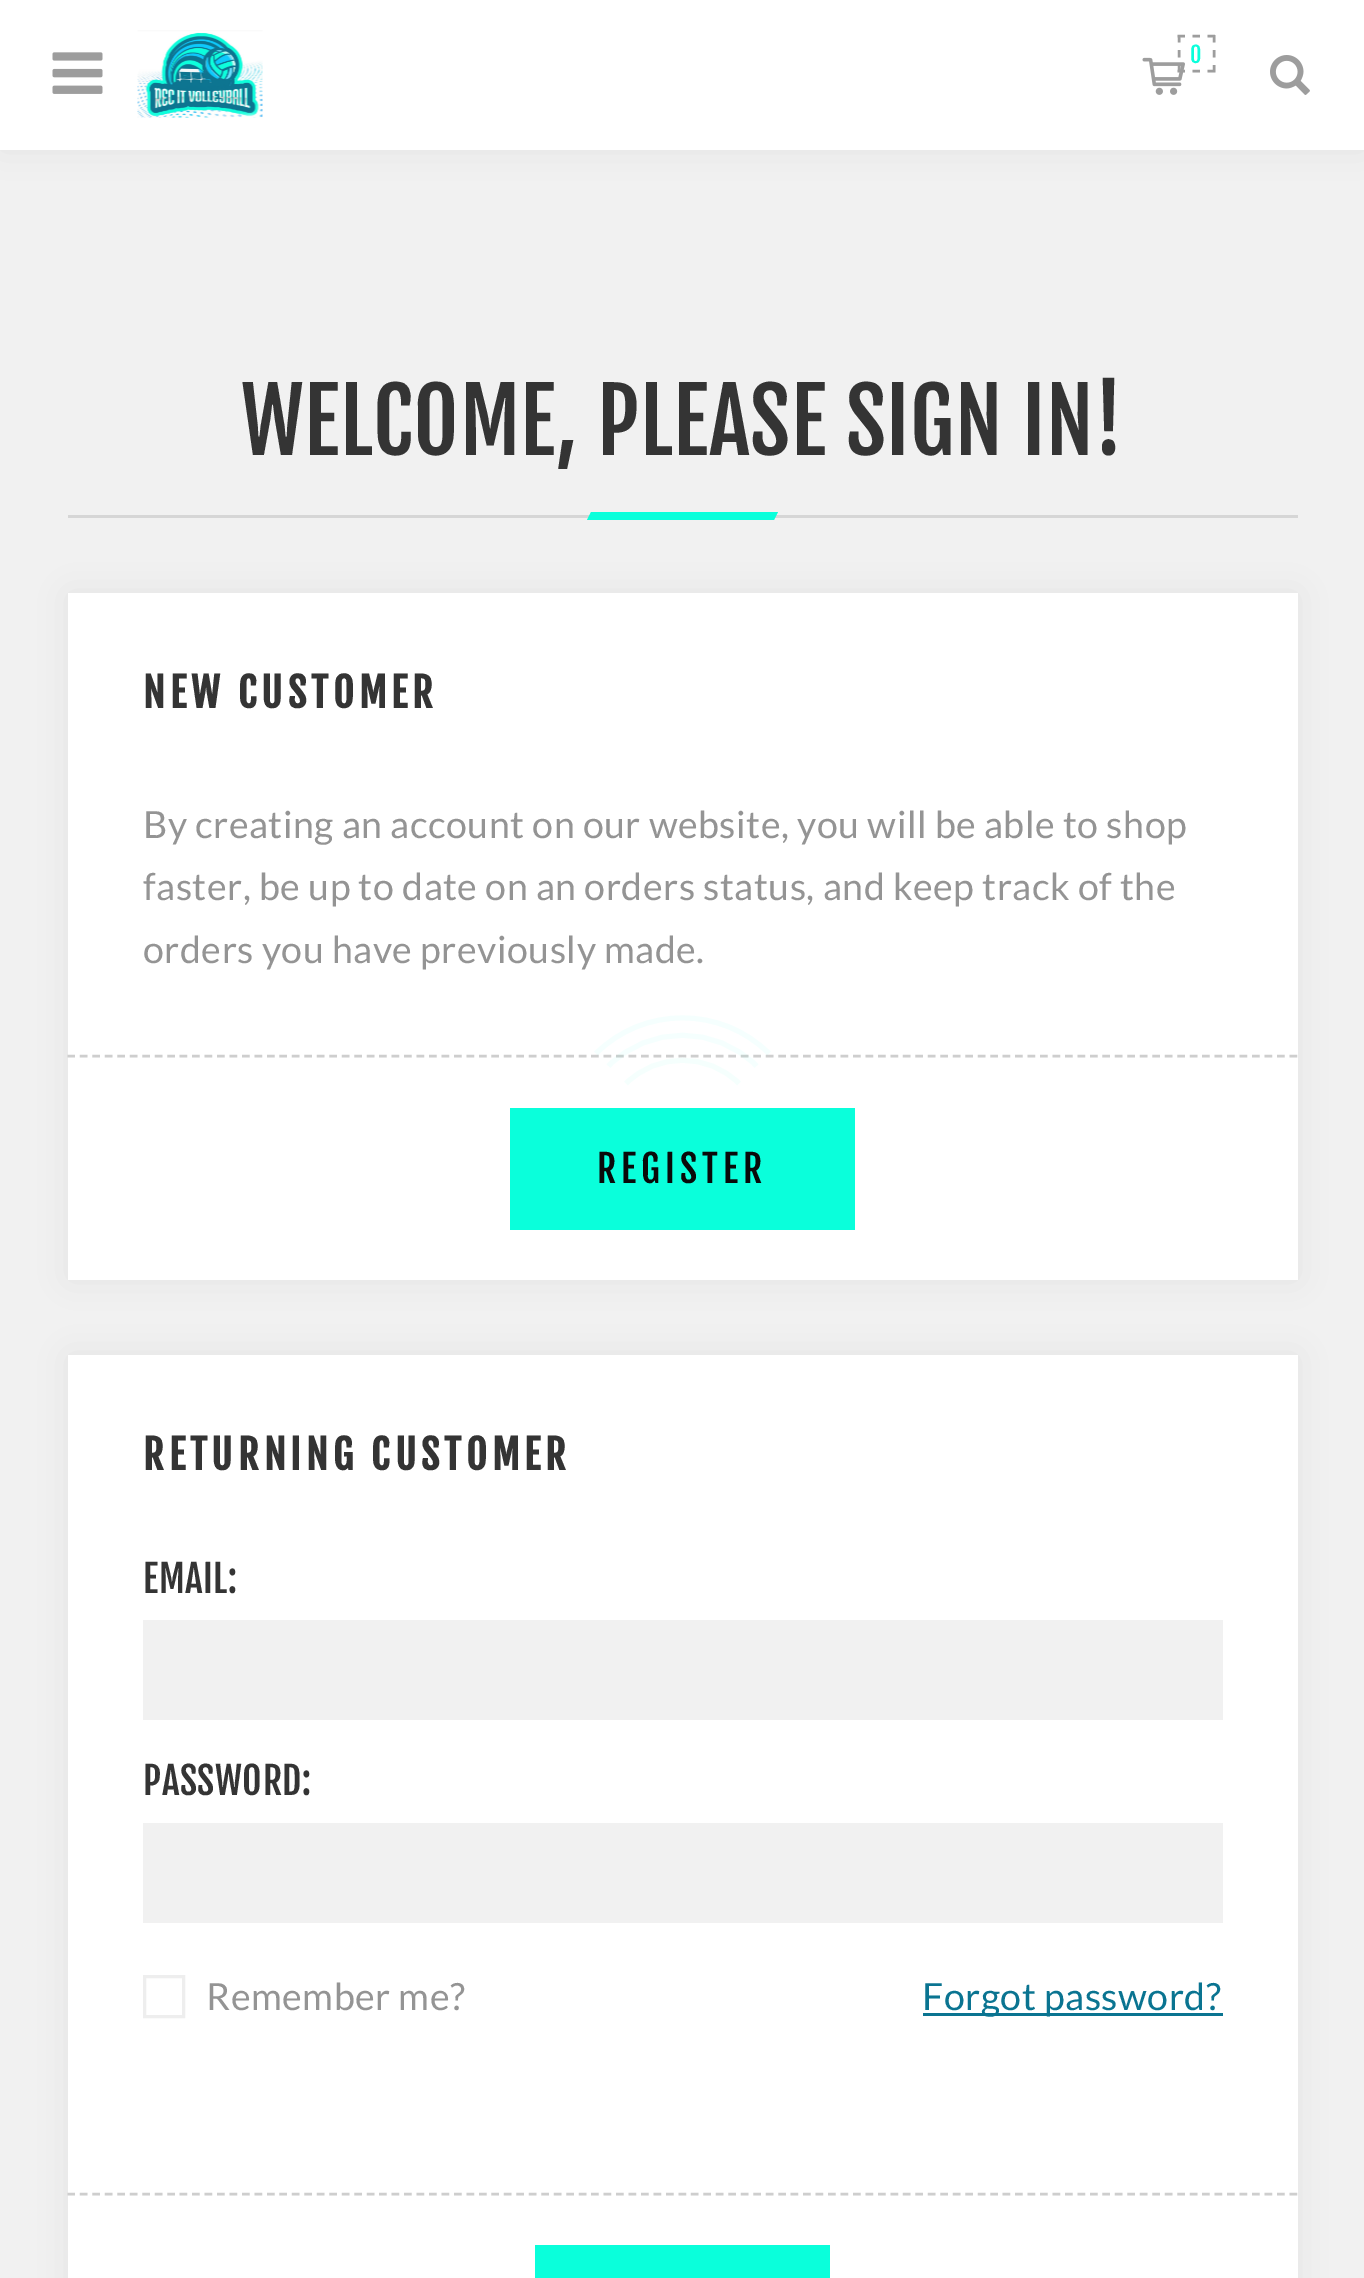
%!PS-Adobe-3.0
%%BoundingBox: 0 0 1364 2278
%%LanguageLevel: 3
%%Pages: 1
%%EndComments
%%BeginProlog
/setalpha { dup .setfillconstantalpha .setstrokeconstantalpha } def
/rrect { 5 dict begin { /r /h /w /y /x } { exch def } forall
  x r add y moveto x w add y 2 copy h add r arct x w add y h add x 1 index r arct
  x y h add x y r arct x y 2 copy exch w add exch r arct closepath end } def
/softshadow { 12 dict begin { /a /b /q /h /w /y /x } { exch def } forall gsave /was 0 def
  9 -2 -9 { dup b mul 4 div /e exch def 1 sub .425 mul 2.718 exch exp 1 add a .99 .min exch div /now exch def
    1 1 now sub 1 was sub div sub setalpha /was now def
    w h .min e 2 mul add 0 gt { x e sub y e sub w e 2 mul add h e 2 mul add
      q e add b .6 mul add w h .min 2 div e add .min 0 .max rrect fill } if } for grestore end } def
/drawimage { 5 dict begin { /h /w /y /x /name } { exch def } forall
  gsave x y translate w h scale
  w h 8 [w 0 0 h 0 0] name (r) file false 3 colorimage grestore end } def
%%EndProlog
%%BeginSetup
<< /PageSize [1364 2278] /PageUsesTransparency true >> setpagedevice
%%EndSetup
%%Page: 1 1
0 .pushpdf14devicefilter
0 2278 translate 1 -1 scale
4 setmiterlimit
0.945 setgray
0 0 1364 2278 rectfill
0.039 setgray
0 0 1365 150 0 17.5 0.06 softshadow
1 setgray
0 0 1364 150 rectfill
(images/1.raw) 52 52 51 42 drawimage
(images/2.raw) 137 30 126 88 drawimage
(images/3.raw) 1142 57 43 38 drawimage
0.616 setgray
2.5 setlinewidth
newpath 1177.5 36 moveto 1185 36 lineto 1192.5 36 moveto 1200 36 lineto 1207.5 36 moveto 1215 36 lineto 1214 35 moveto 1214 42.5 lineto 1214 50 moveto 1214 57.5 lineto 1214 65 moveto 1214 72.5 lineto 1177.5 71 moveto 1185 71 lineto 1192.5 71 moveto 1200 71 lineto 1207.5 71 moveto 1215 71 lineto 1179 35 moveto 1179 42.5 lineto 1179 50 moveto 1179 57.5 lineto 1179 65 moveto 1179 72.5 lineto stroke
(images/4.raw) 1270 55 40 40 drawimage
0.839 setgray
68 515 1230 3 rectfill
0.039 1 0.859 setrgbcolor
newpath 591 512 moveto 778 512 lineto 774 520 lineto 587 520 lineto closepath fill
0.039 setgray
68 593 1230 687 0 17.5 0.06 softshadow
1 setgray
68 593 1230 687 rectfill
0.808 setgray
[7.5 4.97] 0 setdash
newpath 67.5 1056 moveto 1297.5 1056 lineto stroke
0.039 1 0.859 setrgbcolor
510 1108 345 122 rectfill
0.039 setgray
68 1355 1230 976 0 17.5 0.06 softshadow
1 setgray
68 1355 1230 923 rectfill
0.945 setgray
143 1620 1080 100 rectfill
143 1823 1080 100 rectfill
0.933 setgray
3 setlinewidth
[] 0 setdash
144.5 1976.5 39 40 rectstroke
0.039 0.455 0.569 setrgbcolor
923 2013 300 3 rectfill
0.808 setgray
2.5 setlinewidth
[7.5 4.97] 0 setdash
newpath 67.5 2194 moveto 1297.5 2194 lineto stroke
0.039 1 0.859 setrgbcolor
535 2245 295 33 rectfill
0.04 setalpha
0 1 0.855 setrgbcolor
5 setlinewidth
[] 0 setdash
newpath 596 1053.5 moveto 643.5 1006 721.5 1006 769 1053.5 curveto stroke
newpath 608.5 1066 moveto 649 1025 716 1025 756.5 1066 curveto stroke
1 setalpha
0.961 1 0.992 setrgbcolor
newpath 626 1083.5 moveto 657 1052.5 708 1052.5 739 1083.5 curveto stroke
/FjallaOne-Regular [22 0 0 -22 0 0] selectfont
0.039 1 0.859 setrgbcolor
1190 63 moveto 0.5 0 (0) ashow
/FjallaOne-Regular [87.5 0 0 -87.5 0 0] selectfont
0.204 setgray
241 455 moveto 0.5 0 (WELCOME, PLEASE SIGN IN!) ashow
/FjallaOne-Bold [40 0 0 -40 0 0] selectfont
143 708 moveto 5 0 (NEW CUSTOMER) ashow
/Lato-Regular [37.5 0 0 -37.5 0 0] selectfont
0.58 setgray
143 838 moveto 0.5 0 (By creating an account on our website, you will be able to shop) ashow
143 900 moveto 0.5 0 (faster, be up to date on an orders status, and keep track of the) ashow
143 963 moveto 0.5 0 (orders you have previously made.) ashow
/FjallaOne-Regular [37.5 0 0 -37.5 0 0] selectfont
0.039 setgray
597 1183 moveto 5 0 (REGISTER) ashow
/FjallaOne-Bold [40 0 0 -40 0 0] selectfont
0.204 setgray
143 1470 moveto 5 0 (RETURNING CUSTOMER) ashow
/FjallaOne-Regular [37.5 0 0 -37.5 0 0] selectfont
143 1593 moveto 0.5 0 (EMAIL:) ashow
143 1795 moveto 0.5 0 (PASSWORD:) ashow
/Lato-Regular [37.5 0 0 -37.5 0 0] selectfont
0.58 setgray
206 2010 moveto 0.5 0 (Remember me?) ashow
0.039 0.455 0.569 setrgbcolor
922 2010 moveto 0.5 0 (Forgot password?) ashow
.poppdf14devicefilter showpage
%%EOF
